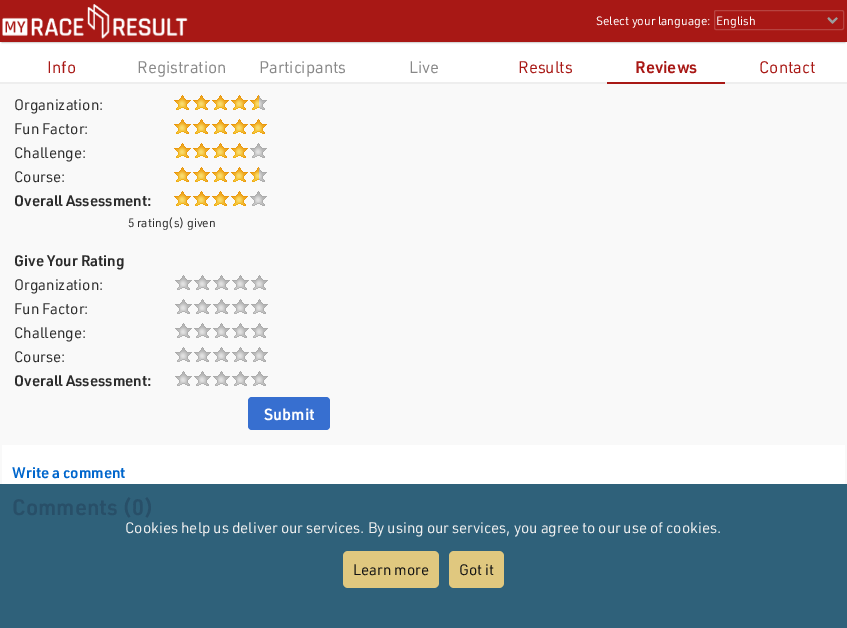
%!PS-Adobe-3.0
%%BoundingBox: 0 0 847 628
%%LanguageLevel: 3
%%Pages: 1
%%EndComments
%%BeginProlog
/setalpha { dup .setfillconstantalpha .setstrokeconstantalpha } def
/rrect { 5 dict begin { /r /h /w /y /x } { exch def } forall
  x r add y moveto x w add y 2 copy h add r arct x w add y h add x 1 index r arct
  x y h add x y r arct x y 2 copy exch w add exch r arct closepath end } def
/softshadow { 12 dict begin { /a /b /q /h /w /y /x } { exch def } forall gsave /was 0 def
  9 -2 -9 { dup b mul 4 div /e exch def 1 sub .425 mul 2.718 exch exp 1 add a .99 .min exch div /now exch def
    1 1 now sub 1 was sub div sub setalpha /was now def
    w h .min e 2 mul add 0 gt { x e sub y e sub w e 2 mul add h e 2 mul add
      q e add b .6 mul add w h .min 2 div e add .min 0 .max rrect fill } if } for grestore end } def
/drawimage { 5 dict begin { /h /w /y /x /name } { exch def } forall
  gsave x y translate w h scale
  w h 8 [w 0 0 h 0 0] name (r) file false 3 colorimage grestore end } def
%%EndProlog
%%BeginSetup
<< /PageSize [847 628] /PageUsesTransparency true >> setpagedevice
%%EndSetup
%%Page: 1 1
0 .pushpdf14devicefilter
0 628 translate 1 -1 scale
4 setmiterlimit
0.976 setgray
0 0 847 628 rectfill
1 setgray
0 42 847 40 rectfill
0 setgray
2 4 843 38 0 1 0.52 softshadow
0.659 0.094 0.082 setrgbcolor
0 0 847 42 rectfill
(images/1.raw) 2 4 186 35 drawimage
(images/2.raw) 827 17 11 7 drawimage
0.718 0.263 0.251 setrgbcolor
714.5 10.5 129 19 1.5 rrect stroke
0.933 setgray
0 82 847 2 rectfill
0.659 0.094 0.082 setrgbcolor
607 82 118 2 rectfill
0.184 0.38 0.478 setrgbcolor
0 484 847 144 rectfill
(images/3.raw) 174 95 93 15 drawimage
(images/4.raw) 174 119 93 15 drawimage
(images/5.raw) 174 143 93 15 drawimage
(images/3.raw) 174 167 93 15 drawimage
(images/5.raw) 174 191 93 15 drawimage
(images/6.raw) 175 275 17 15 drawimage
(images/6.raw) 194 275 17 15 drawimage
(images/6.raw) 213 275 17 15 drawimage
(images/6.raw) 232 275 17 15 drawimage
(images/6.raw) 251 275 17 15 drawimage
(images/6.raw) 175 299 17 15 drawimage
(images/6.raw) 194 299 17 15 drawimage
(images/6.raw) 213 299 17 15 drawimage
(images/6.raw) 232 299 17 15 drawimage
(images/6.raw) 251 299 17 15 drawimage
(images/6.raw) 175 323 17 15 drawimage
(images/6.raw) 194 323 17 15 drawimage
(images/6.raw) 213 323 17 15 drawimage
(images/6.raw) 232 323 17 15 drawimage
(images/6.raw) 251 323 17 15 drawimage
(images/6.raw) 175 347 17 15 drawimage
(images/6.raw) 194 347 17 15 drawimage
(images/6.raw) 213 347 17 15 drawimage
(images/6.raw) 232 347 17 15 drawimage
(images/6.raw) 251 347 17 15 drawimage
(images/6.raw) 175 371 17 15 drawimage
(images/6.raw) 194 371 17 15 drawimage
(images/6.raw) 213 371 17 15 drawimage
(images/6.raw) 232 371 17 15 drawimage
(images/6.raw) 251 371 17 15 drawimage
0.216 0.435 0.816 setrgbcolor
248 397 82 33 4 rrect fill
1 setgray
2 445 843 39 rectfill
0.878 0.784 0.498 setrgbcolor
343 551 96 37 5 rrect fill
449 551 55 37 5 rrect fill
/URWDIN-Regular [12 0 0 -12 0 0] selectfont
1 setgray
596 25 moveto (Select your language:) show
716 25 moveto (English) show
/URWDIN-Regular [16.5 0 0 -16.5 0 0] selectfont
0.659 0.094 0.082 setrgbcolor
47 73 moveto (Info) show
0.533 setgray
137 73 moveto (Registration) show
259 73 moveto (Participants) show
409 73 moveto (Live) show
0.659 0.094 0.082 setrgbcolor
518 73 moveto (Results) show
/URWDIN-SemiBold [16.5 0 0 -16.5 0 0] selectfont
635 73 moveto (Reviews) show
/URWDIN-Regular [16.5 0 0 -16.5 0 0] selectfont
759 73 moveto (Contact) show
/URWDIN-Regular [15 0 0 -15 0 0] selectfont
0.173 setgray
14 110 moveto (Organization:) show
14 134 moveto (Fun Factor:) show
14 158 moveto (Challenge:) show
14 182 moveto (Course:) show
/URWDIN-SemiBold [15 0 0 -15 0 0] selectfont
14 206 moveto (Overall Assessment:) show
/URWDIN-Regular [12 0 0 -12 0 0] selectfont
128 227 moveto (5 rating\(s\) given) show
/URWDIN-SemiBold [15 0 0 -15 0 0] selectfont
14 266 moveto (Give Your Rating) show
/URWDIN-Regular [15 0 0 -15 0 0] selectfont
14 290 moveto (Organization:) show
14 314 moveto (Fun Factor:) show
14 338 moveto (Challenge:) show
14 362 moveto (Course:) show
/URWDIN-SemiBold [15 0 0 -15 0 0] selectfont
14 386 moveto (Overall Assessment:) show
/URWDIN-SemiBold [16 0 0 -16 0 0] selectfont
1 setgray
264 420 moveto (Submit) show
/URWDIN-SemiBold [15 0 0 -15 0 0] selectfont
0 0.4 0.8 setrgbcolor
12 478 moveto (Write a comment) show
/URWDIN-SemiBold [22 0 0 -22 0 0] selectfont
0.157 0.31 0.408 setrgbcolor
12 515 moveto (Comments \(0\)) show
/URWDIN-Regular [15 0 0 -15 0 0] selectfont
0.937 setgray
125 533 moveto (Cookies help us deliver our services. By using our services, you agree to our use of cookies.) show
0.078 setgray
353 575 moveto (Learn more) show
459 575 moveto (Got it) show
.poppdf14devicefilter showpage
%%EOF
